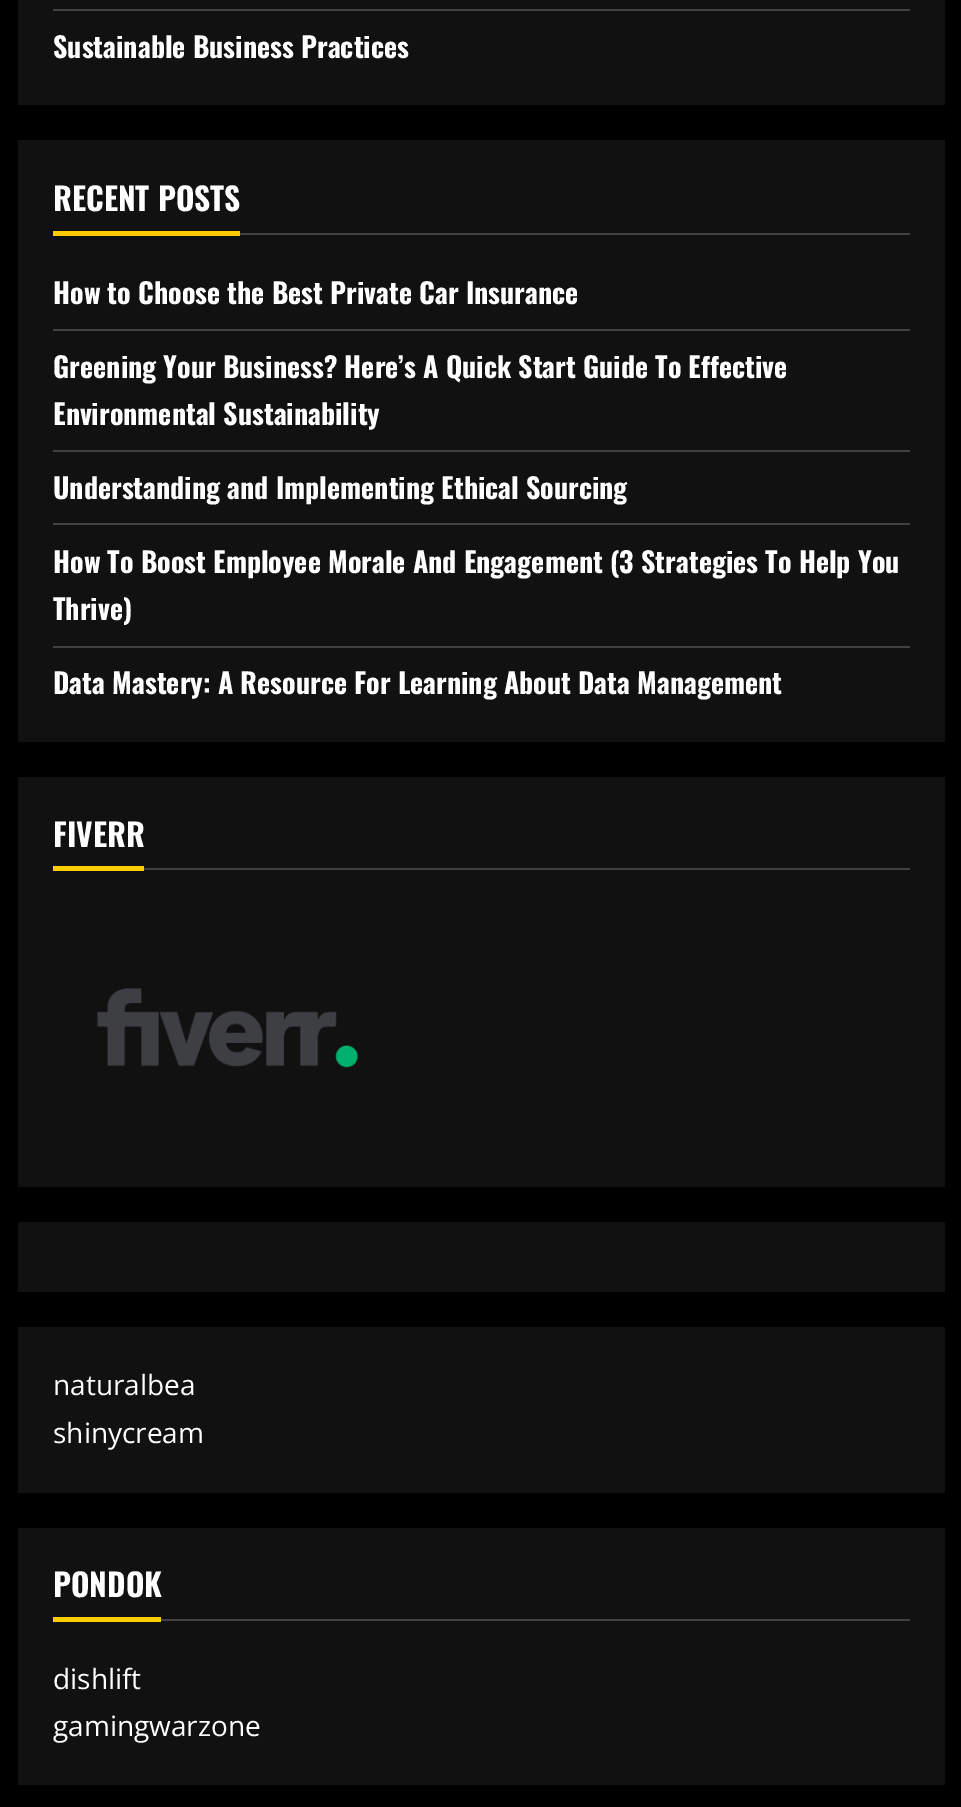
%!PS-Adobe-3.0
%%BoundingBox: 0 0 961 1807
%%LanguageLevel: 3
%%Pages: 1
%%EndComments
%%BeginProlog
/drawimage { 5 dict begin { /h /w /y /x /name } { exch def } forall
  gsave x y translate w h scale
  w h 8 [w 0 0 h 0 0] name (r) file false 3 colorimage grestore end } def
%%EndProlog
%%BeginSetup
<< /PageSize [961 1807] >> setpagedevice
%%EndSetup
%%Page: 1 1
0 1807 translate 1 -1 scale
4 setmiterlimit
0 setgray
0 0 961 1807 rectfill
0.067 setgray
18 0 927 105 rectfill
0.255 setgray
53 9 857 2 rectfill
0.067 setgray
18 140 927 602 rectfill
0.255 setgray
240 233 670 2 rectfill
1 0.8 0 setrgbcolor
53 231 187 5 rectfill
0.255 setgray
53 329 857 2 rectfill
53 450 857 2 rectfill
53 523 857 2 rectfill
53 646 857 2 rectfill
0.067 setgray
18 777 927 410 rectfill
0.255 setgray
144 868 766 2 rectfill
1 0.8 0 setrgbcolor
53 866 91 5 rectfill
(images/1.raw) 97 988 261 80 drawimage
0.067 setgray
18 1222 927 70 rectfill
18 1327 927 166 rectfill
18 1528 927 257 rectfill
0.255 setgray
161 1619 749 2 rectfill
1 0.8 0 setrgbcolor
53 1617 108 5 rectfill
/Oswald-Bold [28 0 0 -28 0 0] selectfont
1 setgray
53 58 moveto (Sustainable Business Practices) show
/Oswald-Bold [31.5 0 0 -31.5 0 0] selectfont
53 211 moveto (RECENT POSTS) show
/Oswald-Bold [28 0 0 -28 0 0] selectfont
53 304 moveto (How to Choose the Best Private Car Insurance) show
53 378 moveto (Greening Your Business? Here’s A Quick Start Guide To Effective) show
53 425 moveto (Environmental Sustainability) show
53 499 moveto (Understanding and Implementing Ethical Sourcing) show
53 573 moveto (How To Boost Employee Morale And Engagement \(3 Strategies To Help You) show
53 620 moveto (Thrive\)) show
53 694 moveto (Data Mastery: A Resource For Learning About Data Management) show
/Oswald-Bold [31.5 0 0 -31.5 0 0] selectfont
53 847 moveto (FIVERR) show
/OpenSans-Regular [28 0 0 -28 0 0] selectfont
53 1395 moveto (naturalbea) show
53 1443 moveto (shinycream) show
/Oswald-Bold [31.5 0 0 -31.5 0 0] selectfont
53 1597 moveto (PONDOK) show
/OpenSans-Regular [28 0 0 -28 0 0] selectfont
53 1689 moveto (dishlift) show
53 1736 moveto (gamingwarzone) show
showpage
%%EOF
